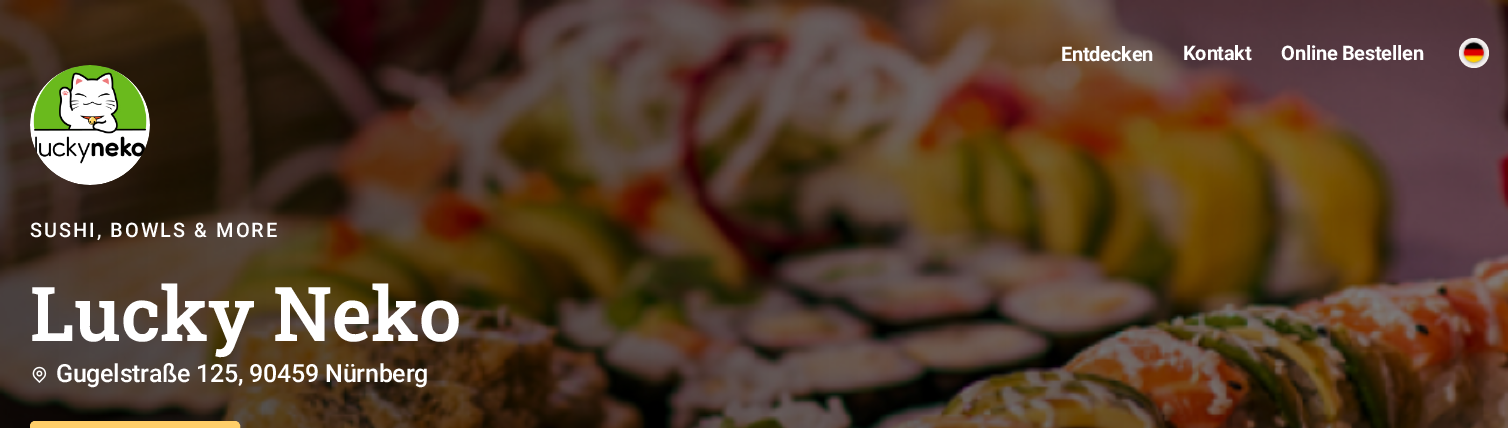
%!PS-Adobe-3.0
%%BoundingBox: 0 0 1508 428
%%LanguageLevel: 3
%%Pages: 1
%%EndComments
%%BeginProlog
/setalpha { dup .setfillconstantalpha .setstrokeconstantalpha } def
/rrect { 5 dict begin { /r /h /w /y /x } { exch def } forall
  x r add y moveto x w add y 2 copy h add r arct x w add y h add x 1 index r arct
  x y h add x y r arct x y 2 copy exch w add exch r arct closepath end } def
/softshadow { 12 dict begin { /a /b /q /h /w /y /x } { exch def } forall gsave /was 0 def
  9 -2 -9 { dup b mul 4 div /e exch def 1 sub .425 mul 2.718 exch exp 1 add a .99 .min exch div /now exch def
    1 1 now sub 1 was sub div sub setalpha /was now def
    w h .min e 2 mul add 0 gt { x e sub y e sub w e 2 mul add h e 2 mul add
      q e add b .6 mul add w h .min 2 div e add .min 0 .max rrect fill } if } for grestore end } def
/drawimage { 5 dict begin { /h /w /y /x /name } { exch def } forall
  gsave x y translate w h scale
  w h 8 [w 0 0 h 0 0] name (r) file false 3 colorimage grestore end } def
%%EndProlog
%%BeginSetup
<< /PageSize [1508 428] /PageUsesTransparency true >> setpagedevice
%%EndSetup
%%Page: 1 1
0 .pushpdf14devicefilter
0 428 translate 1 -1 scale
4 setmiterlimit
1 setgray
0 0 1508 428 rectfill
(images/2.raw) 0 0 1508 428 drawimage
0.969 0.953 0.949 setrgbcolor
newpath 1474 53 15 0 360 arc closepath fill
0 setgray
1464 43 20 20 10 2 0.4 softshadow
0.667 setgray
newpath 1474 53 10 0 360 arc closepath fill
(images/1.raw) 1463 42 21 22 drawimage
(images/3.raw) 30 65 120 120 drawimage
(images/4.raw) 32 366 15 17 drawimage
1 0.808 0.412 setrgbcolor
30.5 421.5 209 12 4.5 rrect gsave fill grestore
stroke
/Roboto-Bold [20 0 0 -20 0 0] selectfont
1 setgray
1061 61 moveto -0.25 0 (Entdecken) ashow
1183 60 moveto -0.25 0 (Kontakt) ashow
1281 60 moveto -0.25 0 (Online Bestellen) ashow
/Roboto-Medium [20 0 0 -20 0 0] selectfont
30 237 moveto 2 0 (SUSHI, BOWLS & MORE) ashow
/RobotoSlab-SemiBold [75.5 0 0 -75.5 0 0] selectfont
30 341 moveto -0.25 0 (Lucky Neko) ashow
/Roboto-Medium [25 0 0 -25 0 0] selectfont
56 382 moveto -0.25 0 (Gugelstraße 125, 90459 Nürnberg) ashow
.poppdf14devicefilter showpage
%%EOF
